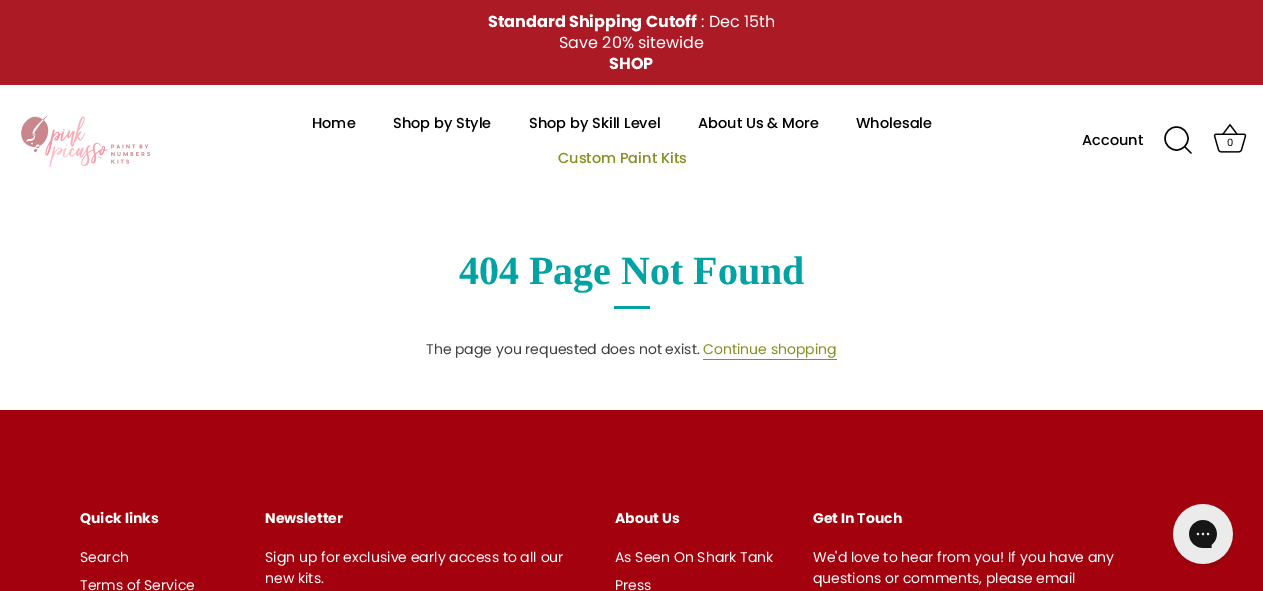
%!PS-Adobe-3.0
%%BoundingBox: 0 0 1263 591
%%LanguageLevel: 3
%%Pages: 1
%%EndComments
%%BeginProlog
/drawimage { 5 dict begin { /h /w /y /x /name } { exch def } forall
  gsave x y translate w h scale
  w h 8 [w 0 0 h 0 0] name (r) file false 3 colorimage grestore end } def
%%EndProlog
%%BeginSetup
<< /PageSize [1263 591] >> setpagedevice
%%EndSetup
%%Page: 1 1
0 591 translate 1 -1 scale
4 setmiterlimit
1 setgray
0 0 1263 591 rectfill
0.675 0.102 0.145 setrgbcolor
0 0 1263 85 rectfill
(images/1.raw) 21 116 129 51 drawimage
0 setgray
1.4 setlinewidth
newpath 1176.5 138.5 11.5 0 360 arc closepath stroke
1 setlinecap
1 setlinejoin
newpath 1191 153 moveto 1185 147 lineto stroke
(images/2.raw) 1213 124 34 29 drawimage
0 0.635 0.639 setrgbcolor
614 306 36 3 rectfill
0.525 0.565 0.129 setrgbcolor
703 359 134 1 rectfill
0.639 0.004 0.051 setrgbcolor
0 410 1263 181 rectfill
(images/3.raw) 1171 504 64 64 drawimage
/Poppins-Bold [16 0 0 -16 0 0] selectfont
1 setgray
488 27 moveto (Standard Shipping Cutoff) show
/Poppins-Regular [16 0 0 -16 0 0] selectfont
701 27 moveto (: Dec 15th) show
559 48 moveto (Save 20% sitewide) show
/Poppins-Bold [16 0 0 -16 0 0] selectfont
609 69 moveto (SHOP) show
/Poppins-Medium [14.5 0 0 -14.5 0 0] selectfont
0 setgray
312 128 moveto (Home) show
393 128 moveto (Shop by Style) show
529 128 moveto (Shop by Skill Level) show
698 128 moveto (About Us & More) show
856 128 moveto (Wholesale) show
0.525 0.565 0.129 setrgbcolor
558 163 moveto (Custom Paint Kits) show
0 setgray
1082 145 moveto (Account) show
/Poppins-Regular [10 0 0 -10 0 0] selectfont
1227 146 moveto (0) show
/LiberationSerif-Bold [40 0 0 -40 0 0] selectfont
0 0.635 0.639 setrgbcolor
459 284 moveto (404 Page Not Found) show
/Poppins-Regular [14 0 0 -14 0 0] selectfont
0.259 0.247 0.247 setrgbcolor
426 354 moveto (The page you requested does not exist.) show
0.525 0.565 0.129 setrgbcolor
703 354 moveto (Continue shopping) show
/Poppins-Bold [14 0 0 -14 0 0] selectfont
1 setgray
80 523 moveto (Quick links) show
/Poppins-Regular [14 0 0 -14 0 0] selectfont
80 562 moveto (Search) show
80 590 moveto (Terms of Service) show
/Poppins-Bold [14 0 0 -14 0 0] selectfont
265 523 moveto (Newsletter) show
/Poppins-Regular [14 0 0 -14 0 0] selectfont
265 562 moveto (Sign up for exclusive early access to all our) show
265 583 moveto (new kits.) show
/Poppins-Bold [14 0 0 -14 0 0] selectfont
615 523 moveto (About Us) show
/Poppins-Regular [14 0 0 -14 0 0] selectfont
615 562 moveto (As Seen On Shark Tank) show
615 590 moveto (Press) show
/Poppins-Bold [14 0 0 -14 0 0] selectfont
813 523 moveto (Get In Touch) show
/Poppins-Regular [14 0 0 -14 0 0] selectfont
813 562 moveto (We'd love to hear from you! If you have any) show
813 583 moveto (questions or comments, please email) show
showpage
%%EOF
